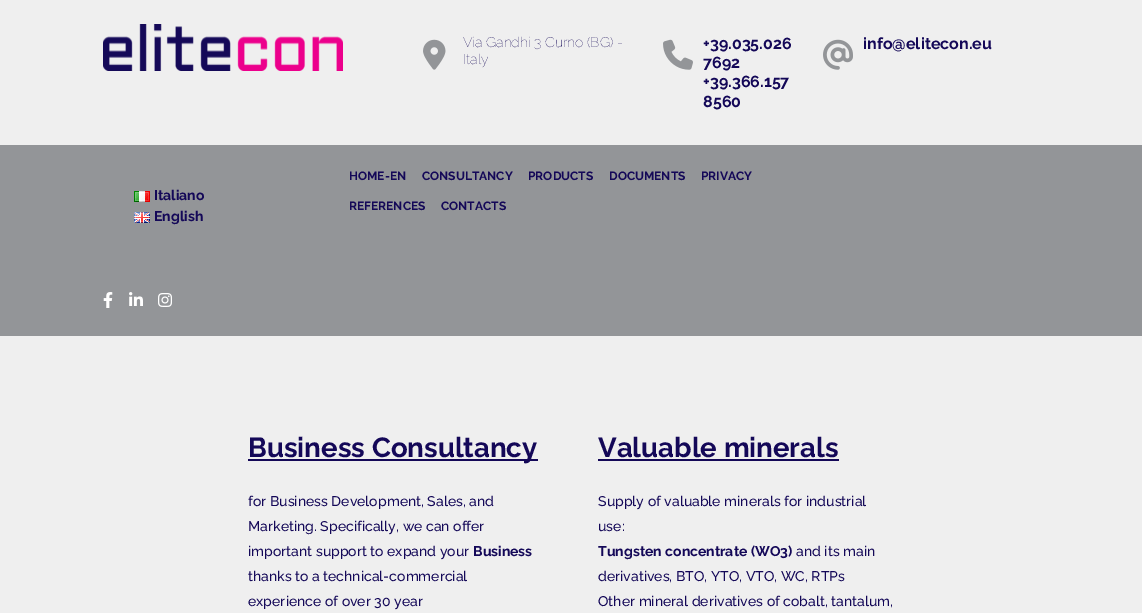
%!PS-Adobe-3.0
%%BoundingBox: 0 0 1142 613
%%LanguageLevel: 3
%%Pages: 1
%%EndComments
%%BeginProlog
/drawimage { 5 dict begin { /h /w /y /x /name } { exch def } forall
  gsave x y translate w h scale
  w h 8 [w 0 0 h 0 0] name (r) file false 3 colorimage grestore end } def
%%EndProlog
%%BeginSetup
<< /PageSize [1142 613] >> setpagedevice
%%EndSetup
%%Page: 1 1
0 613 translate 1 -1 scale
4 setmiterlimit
0.937 setgray
0 0 1142 613 rectfill
(images/1.raw) 103 24 240 47 drawimage
(images/2.raw) 423 39 23 31 drawimage
(images/3.raw) 663 39 30 31 drawimage
(images/4.raw) 823 39 30 31 drawimage
0.576 0.584 0.596 setrgbcolor
0 145 1142 191 rectfill
(images/5.raw) 134 191 16 11 drawimage
(images/6.raw) 134 212 16 11 drawimage
(images/7.raw) 103 292 10 16 drawimage
(images/8.raw) 129 292 14 14 drawimage
(images/9.raw) 158 293 14 14 drawimage
0.078 0.031 0.345 setrgbcolor
248 459 290 2 rectfill
598 459 241 2 rectfill
/Raleway-Thin [14 0 0 -14 0 0] selectfont
463 47 moveto (Via Gandhi 3 Curno \(BG\) -) show
463 64 moveto (Italy) show
/Raleway-Bold [16 0 0 -16 0 0] selectfont
703 49 moveto (+39.035.026) show
703 68 moveto (7692) show
703 87 moveto (+39.366.157) show
703 107 moveto (8560) show
863 49 moveto (info@elitecon.eu) show
/Raleway-Bold [14 0 0 -14 0 0] selectfont
154 200 moveto (Italiano) show
154 221 moveto (English) show
/Raleway-Bold [12 0 0 -12 0 0] selectfont
349 180 moveto (HOME-EN) show
422 180 moveto (CONSULTANCY) show
528 180 moveto (PRODUCTS) show
609 180 moveto (DOCUMENTS) show
701 180 moveto (PRIVACY) show
349 210 moveto (REFERENCES) show
441 210 moveto (CONTACTS) show
/Raleway-Bold [27.6 0 0 -27.6 0 0] selectfont
248 457 moveto (Business Consultancy) show
/Raleway-Medium [14 0 0 -14 0 0] selectfont
248 506 moveto (for Business Development, Sales, and) show
248 531 moveto (Marketing. Specifically, we can offer) show
248 556 moveto (important support to expand your) show
/Raleway-Bold [14 0 0 -14 0 0] selectfont
473 556 moveto (Business) show
/Raleway-Medium [14 0 0 -14 0 0] selectfont
248 581 moveto (thanks to a technical-commercial) show
248 606 moveto (experience of over 30 year) show
/Raleway-Bold [27.6 0 0 -27.6 0 0] selectfont
598 457 moveto (Valuable minerals) show
/Raleway-Medium [14 0 0 -14 0 0] selectfont
598 506 moveto (Supply of valuable minerals for industrial) show
598 531 moveto (use:) show
/Raleway-Bold [14 0 0 -14 0 0] selectfont
598 556 moveto (Tungsten concentrate \(WO3\)) show
/Raleway-Medium [14 0 0 -14 0 0] selectfont
796 556 moveto (and its main) show
598 581 moveto (derivatives, BTO, YTO, VTO, WC, RTPs) show
598 606 moveto (Other mineral derivatives of cobalt, tantalum,) show
showpage
%%EOF
